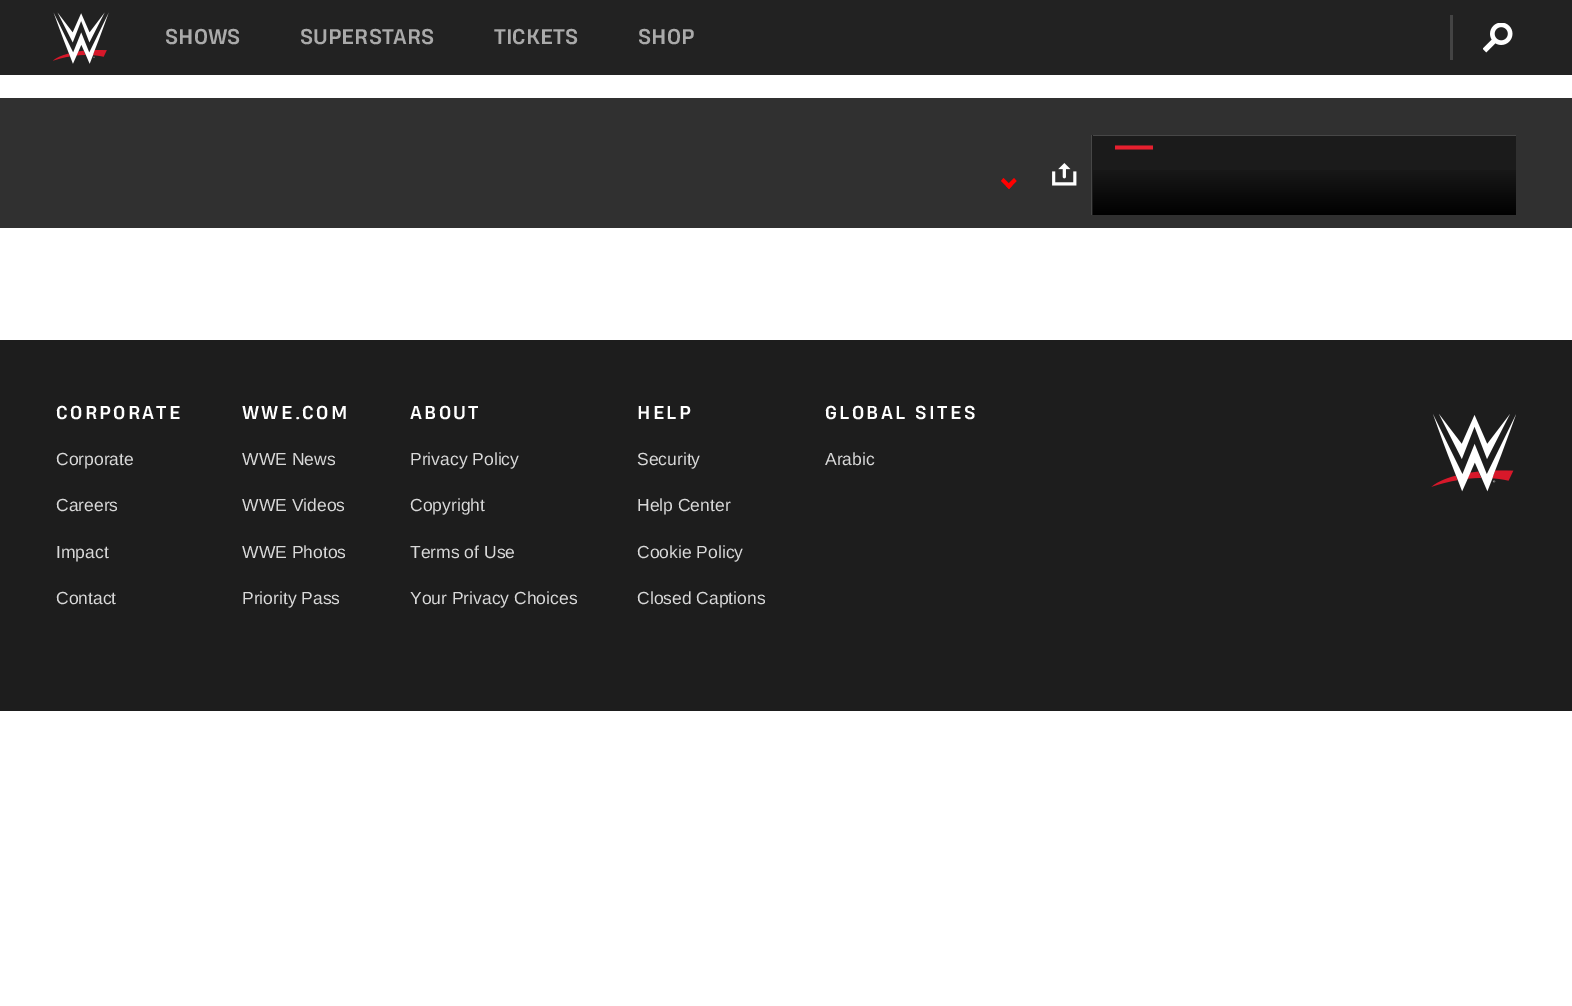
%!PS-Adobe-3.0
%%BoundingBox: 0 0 1572 1006
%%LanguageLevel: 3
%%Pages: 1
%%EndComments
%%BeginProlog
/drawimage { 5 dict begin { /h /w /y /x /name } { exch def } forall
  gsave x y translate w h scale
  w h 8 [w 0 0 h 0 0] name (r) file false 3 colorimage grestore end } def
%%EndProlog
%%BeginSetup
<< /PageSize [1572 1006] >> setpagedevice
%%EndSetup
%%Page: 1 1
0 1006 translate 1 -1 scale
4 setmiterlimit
1 setgray
0 0 1572 1006 rectfill
0.133 setgray
0 0 1572 75 rectfill
(images/1.raw) 53 12 56 52 drawimage
0.267 setgray
1450 15 3 45 rectfill
(images/2.raw) 1483 23 30 30 drawimage
0.188 setgray
0 98 1572 130 rectfill
1 0 0 setrgbcolor
newpath 1014 178 moveto 1016.5 181 lineto 1009 189 lineto 1006 186 lineto closepath fill
newpath 1003.5 178 moveto 1011.5 186 lineto 1009 189 lineto 1001 181 lineto closepath fill
(images/3.raw) 1052 163 25 23 drawimage
0.106 setgray
1092 135 424 80 rectfill
0.278 setgray
1091 135 1 80 rectfill
1093 135 423 1 rectfill
gsave
1115 144 38 6 rectclip
0.906 0.125 0.184 setrgbcolor
3.8 setlinewidth
newpath 1057 147.5 moveto 1169.5 147.5 lineto stroke
grestore
gsave newpath 1093 170 moveto 1516 170 lineto 1516 215 lineto 1093 215 lineto closepath clip newpath
<< /ShadingType 2 /ColorSpace /DeviceRGB /Coords [1304 165 1304 215] /Extend [true true] /Function << /FunctionType 2 /Domain [0 1] /C0 [0.106 0.106 0.106] /C1 [0.004 0.004 0.004] /N 1 >> >> shfill grestore
0.114 setgray
0 340 1572 371 rectfill
(images/4.raw) 1431 414 85 78 drawimage
/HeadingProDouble-Bold [20 0 0 -20 0 0] selectfont
0.667 setgray
165 44 moveto (SHOWS) show
300 44 moveto (SUPERSTARS) show
494 44 moveto (TICKETS) show
638 44 moveto (SHOP) show
/HeadingProDouble-Bold [17.5 0 0 -17.5 0 0] selectfont
1 setgray
56 419 moveto 2.25 0 (CORPORATE) ashow
/LiberationSans-Regular [17.5 0 0 -17.5 0 0] selectfont
0.847 setgray
56 465 moveto (Corporate) show
56 511 moveto (Careers) show
56 558 moveto (Impact) show
56 604 moveto (Contact) show
/HeadingProDouble-Bold [17.5 0 0 -17.5 0 0] selectfont
1 setgray
242 419 moveto 2.25 0 (WWE.COM) ashow
/LiberationSans-Regular [17.5 0 0 -17.5 0 0] selectfont
0.847 setgray
242 465 moveto (WWE News) show
242 511 moveto (WWE Videos) show
242 558 moveto (WWE Photos) show
242 604 moveto (Priority Pass) show
/HeadingProDouble-Bold [17.5 0 0 -17.5 0 0] selectfont
1 setgray
410 419 moveto 2.25 0 (ABOUT) ashow
/LiberationSans-Regular [17.5 0 0 -17.5 0 0] selectfont
0.847 setgray
410 465 moveto (Privacy Policy) show
410 511 moveto (Copyright) show
410 558 moveto (Terms of Use) show
410 604 moveto (Your Privacy Choices) show
/HeadingProDouble-Bold [17.5 0 0 -17.5 0 0] selectfont
1 setgray
637 419 moveto 2.25 0 (HELP) ashow
/LiberationSans-Regular [17.5 0 0 -17.5 0 0] selectfont
0.847 setgray
637 465 moveto (Security) show
637 511 moveto (Help Center) show
637 558 moveto (Cookie Policy) show
637 604 moveto (Closed Captions) show
/HeadingProDouble-Bold [17.5 0 0 -17.5 0 0] selectfont
1 setgray
825 419 moveto 2.25 0 (GLOBAL SITES) ashow
/LiberationSans-Regular [17.5 0 0 -17.5 0 0] selectfont
0.847 setgray
825 465 moveto (Arabic) show
showpage
%%EOF
